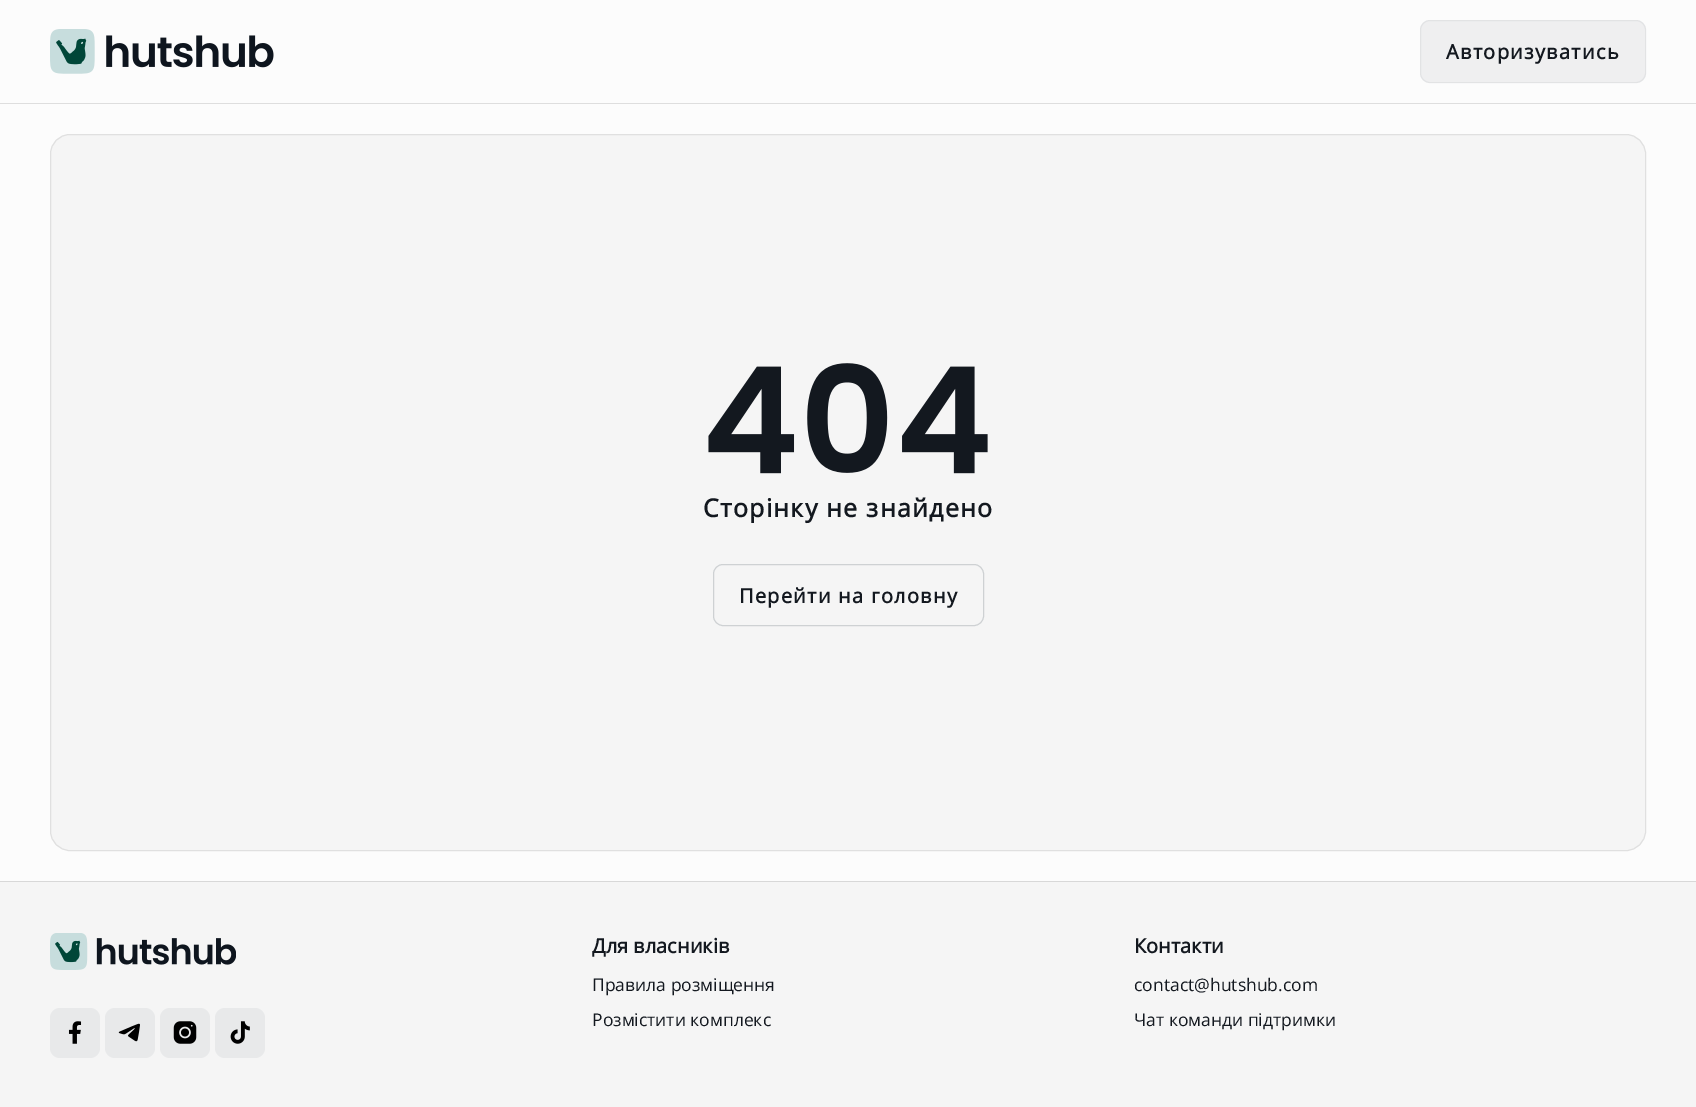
%!PS-Adobe-3.0
%%BoundingBox: 0 0 1696 1107
%%LanguageLevel: 3
%%Pages: 1
%%EndComments
%%BeginProlog
/setalpha { dup .setfillconstantalpha .setstrokeconstantalpha } def
/rrect { 5 dict begin { /r /h /w /y /x } { exch def } forall
  x r add y moveto x w add y 2 copy h add r arct x w add y h add x 1 index r arct
  x y h add x y r arct x y 2 copy exch w add exch r arct closepath end } def
/drawimage { 5 dict begin { /h /w /y /x /name } { exch def } forall
  gsave x y translate w h scale
  w h 8 [w 0 0 h 0 0] name (r) file false 3 colorimage grestore end } def
%%EndProlog
%%BeginSetup
<< /PageSize [1696 1107] /PageUsesTransparency true >> setpagedevice
%%EndSetup
%%Page: 1 1
0 .pushpdf14devicefilter
0 1107 translate 1 -1 scale
4 setmiterlimit
0.988 setgray
0 0 1696 1107 rectfill
(images/1.raw) 50 29 224 45 drawimage
0.937 0.937 0.941 setrgbcolor
1420 20 226 63 10 rrect fill
0.07 setalpha
0.2 0.247 0.302 setrgbcolor
1420.5 20.5 225 62 9.5 rrect stroke
1 setalpha
0.871 setgray
0 103 1696 1 rectfill
0.961 setgray
50.5 134.5 1595 716 19.5 rrect gsave fill grestore
0.878 setgray
stroke
(images/2.raw) 708 363 280 111 drawimage
0.808 0.82 0.827 setrgbcolor
713.5 564.5 270 61 9.5 rrect stroke
0.961 setgray
0 882 1696 225 rectfill
0.847 setgray
0 881 1696 1 rectfill
(images/3.raw) 50 933 186 37 drawimage
0.91 0.914 0.918 setrgbcolor
50 1008 50 50 10 rrect fill
(images/4.raw) 68 1021 14 23 drawimage
105 1008 50 50 10 rrect fill
(images/5.raw) 118 1023 22 19 drawimage
160 1008 50 50 10 rrect fill
(images/6.raw) 173 1021 24 23 drawimage
215 1008 50 50 10 rrect fill
(images/7.raw) 230 1021 20 23 drawimage
/OpenSans-Bold [20 0 0 -20 0 0] selectfont
0.075 0.094 0.122 setrgbcolor
1446 59 moveto 1.25 0 (Авторизуватись) ashow
/OpenSans-Bold [25 0 0 -25 0 0] selectfont
703 517 moveto 1.25 0 (Сторінку не знайдено) ashow
/OpenSans-Bold [20 0 0 -20 0 0] selectfont
739 603 moveto 1.25 0 (Перейти на головну) ashow
592 953 moveto (Для власників) show
/OpenSans-Regular [17.5 0 0 -17.5 0 0] selectfont
592 991 moveto (Правила розміщення) show
592 1026 moveto (Розмістити комплекс) show
/OpenSans-Bold [20 0 0 -20 0 0] selectfont
1134 953 moveto (Контакти) show
/OpenSans-Regular [17.5 0 0 -17.5 0 0] selectfont
1134 991 moveto (contact@hutshub.com) show
1134 1026 moveto (Чат команди підтримки) show
.poppdf14devicefilter showpage
%%EOF
